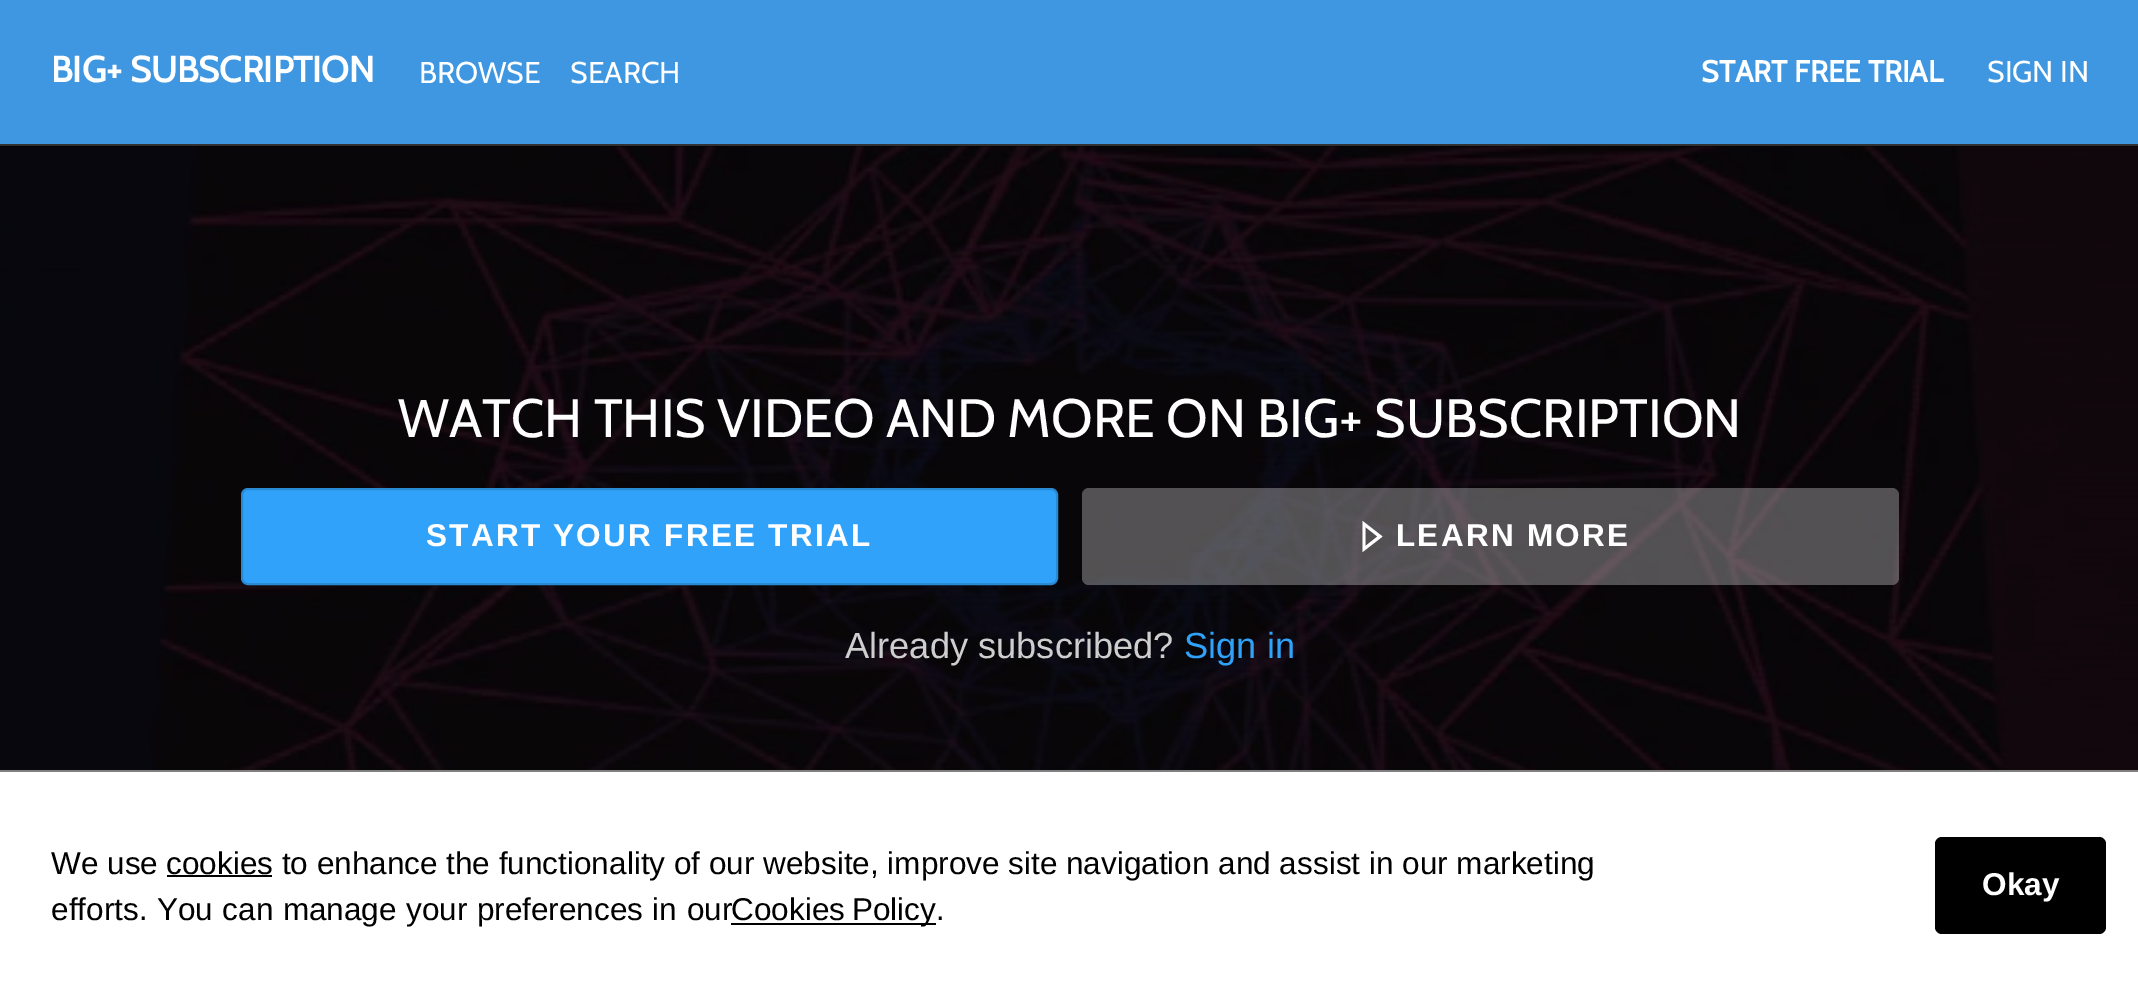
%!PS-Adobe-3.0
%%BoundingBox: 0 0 2138 998
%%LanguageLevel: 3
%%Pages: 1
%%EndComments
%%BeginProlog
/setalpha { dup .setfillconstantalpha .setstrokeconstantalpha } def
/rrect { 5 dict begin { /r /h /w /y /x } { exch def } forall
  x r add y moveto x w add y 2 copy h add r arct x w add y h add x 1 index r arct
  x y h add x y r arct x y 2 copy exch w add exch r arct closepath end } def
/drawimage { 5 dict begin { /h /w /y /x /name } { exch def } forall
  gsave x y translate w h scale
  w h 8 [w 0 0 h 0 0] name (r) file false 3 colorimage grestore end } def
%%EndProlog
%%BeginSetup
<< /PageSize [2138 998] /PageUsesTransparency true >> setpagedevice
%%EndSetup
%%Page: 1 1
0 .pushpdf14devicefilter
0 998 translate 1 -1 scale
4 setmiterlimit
0.243 0.592 0.878 setrgbcolor
0 0 2138 998 rectfill
0.196 setgray
0 144 2138 2 rectfill
0 setgray
0 146 2138 1 rectfill
(images/1.raw) 0 146 2138 624 drawimage
0.188 0.635 0.976 setrgbcolor
242 489 815 95 6 rrect gsave fill grestore
0.161 0.541 0.831 setrgbcolor
2 setlinewidth
stroke
0.3 setalpha
1 setgray
1082 488 817 97 7 rrect fill
1 setalpha
newpath 1362.5 552 moveto 1362.5 521 lineto 1382.5 536.5 lineto closepath 1365.5 527 moveto 1365.5 546 lineto 1377.5 536.5 lineto closepath fill
0 772 2138 226 rectfill
0.502 setgray
0 770 2138 2 rectfill
0 setgray
167 875 105 2 rectfill
731 923 205 2 rectfill
1935 837 171 97 7 rrect fill
/Cabin-Bold [36 0 0 -36 0 0] selectfont
1 setgray
51 82 moveto (BIG+ SUBSCRIPTION) show
/Cabin-Regular [30 0 0 -30 0 0] selectfont
419 83 moveto (BROWSE) show
570 83 moveto (SEARCH) show
/Cabin-Bold [30 0 0 -30 0 0] selectfont
1701 82 moveto (START FREE TRIAL) show
/Cabin-Regular [30 0 0 -30 0 0] selectfont
1987 82 moveto (SIGN IN) show
/Cabin-Regular [54 0 0 -54 0 0] selectfont
398 437 moveto -1 0 32 (WATCH THIS VIDEO AND MORE ON BIG+ SUBSCRIPTION) widthshow
/LiberationSans-Bold [31.5 0 0 -31.5 0 0] selectfont
426 546 moveto 2.25 0 (START YOUR FREE TRIAL) ashow
1396 546 moveto 2.25 0 (LEARN MORE) ashow
/LiberationSans-Regular [36.25 0 0 -36.25 0 0] selectfont
0.808 0.808 0.812 setrgbcolor
845 658 moveto (Already subscribed?) show
0.188 0.635 0.976 setrgbcolor
1184 658 moveto (Sign in) show
/LiberationSans-Regular [31.5 0 0 -31.5 0 0] selectfont
0 setgray
51 874 moveto (We use) show
166 874 moveto (cookies to enhance the functionality of our website, improve site navigation and assist in our marketing) show
51 920 moveto 0.75 0 32 (efforts. You can manage your preferences in our) widthshow
731 920 moveto -2 0 32 (Cookies Policy) widthshow
936 920 moveto (.) show
/LiberationSans-Bold [31.5 0 0 -31.5 0 0] selectfont
1 setgray
1982 895 moveto (Okay) show
.poppdf14devicefilter showpage
%%EOF
